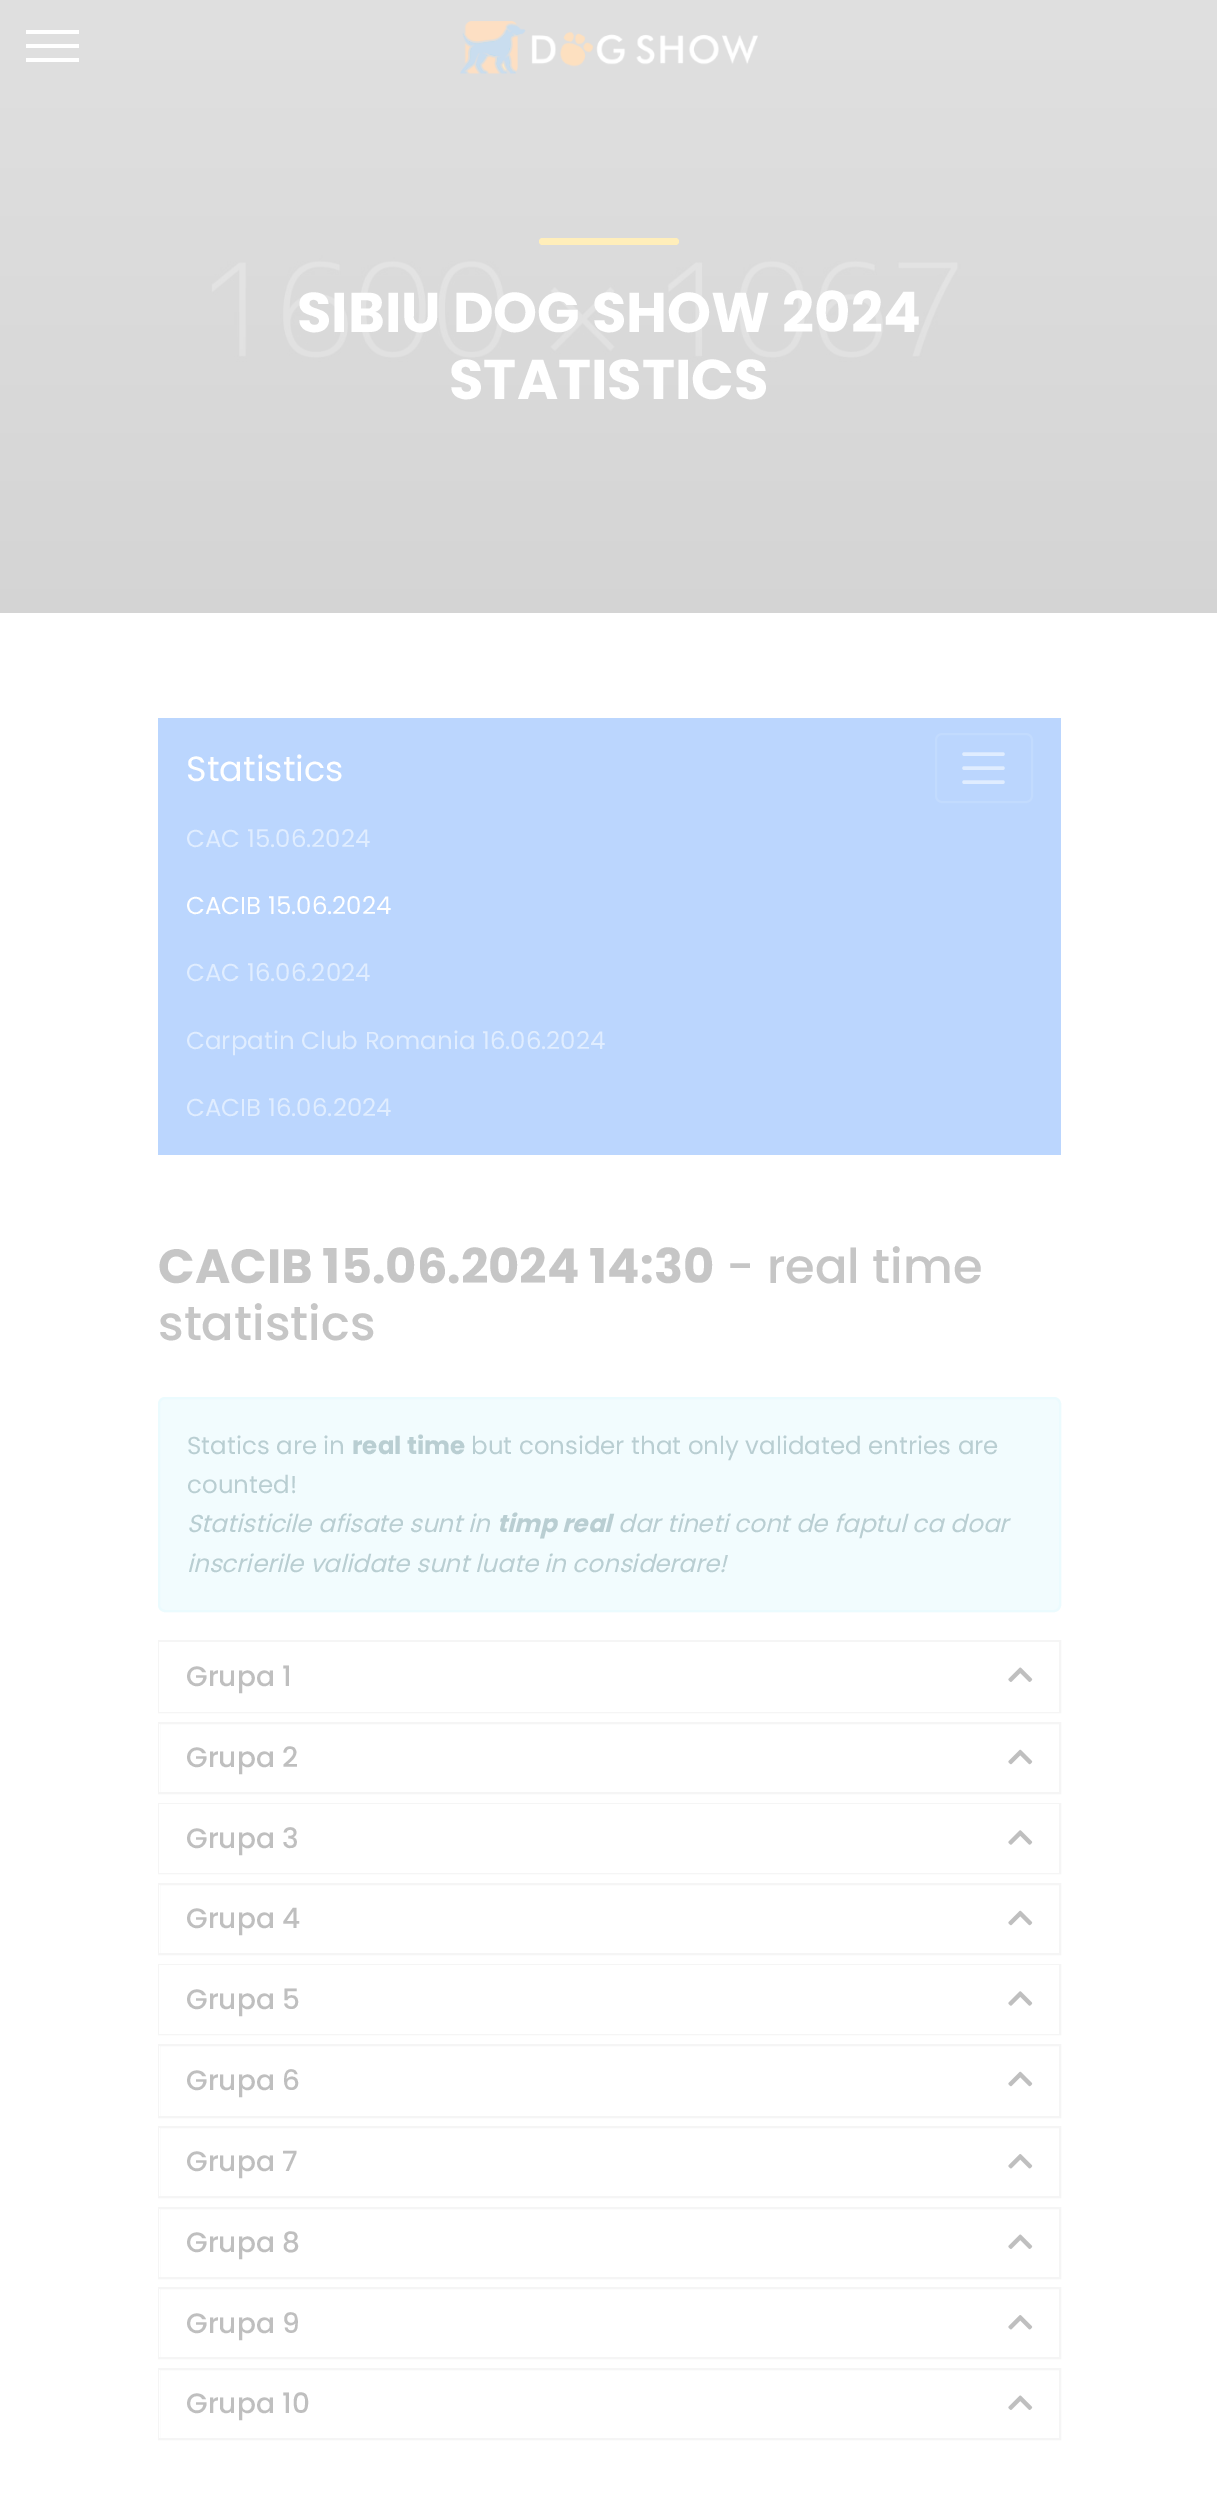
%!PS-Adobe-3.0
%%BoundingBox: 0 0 1217 2510
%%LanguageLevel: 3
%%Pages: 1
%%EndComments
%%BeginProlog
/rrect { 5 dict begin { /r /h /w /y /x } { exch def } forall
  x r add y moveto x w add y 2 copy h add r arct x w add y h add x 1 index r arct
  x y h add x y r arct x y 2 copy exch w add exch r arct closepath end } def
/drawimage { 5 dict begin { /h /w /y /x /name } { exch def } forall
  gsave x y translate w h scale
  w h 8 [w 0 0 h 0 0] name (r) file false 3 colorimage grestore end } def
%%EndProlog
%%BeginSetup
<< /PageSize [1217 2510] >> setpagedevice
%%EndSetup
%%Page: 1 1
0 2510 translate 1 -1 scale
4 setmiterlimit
1 setgray
0 0 1217 2510 rectfill
(images/2.raw) 0 0 1217 613 drawimage
26 44 53 4 rectfill
26 30 53 4 rectfill
26 58 53 4 rectfill
(images/1.raw) 460 21 298 53 drawimage
1 0.933 0.729 setrgbcolor
539 238 140 7 3.5 rrect fill
0.733 0.839 0.996 setrgbcolor
158 718 903 437 rectfill
0.761 0.859 0.996 setrgbcolor
2 setlinewidth
936 734 96 68 6 rrect stroke
0.878 0.929 1 setrgbcolor
3.5 setlinewidth
1 setlinecap
newpath 964 754 moveto 1003 754 lineto 964 768 moveto 1003 768 lineto 964 782 moveto 1003 782 lineto stroke
0.949 0.988 0.996 setrgbcolor
159 1398 901 213 6 rrect gsave fill grestore
0.922 0.984 0.996 setrgbcolor
2 setlinewidth
0 setlinecap
stroke
0.961 setgray
159 1641 901 71 rectstroke
1 setgray
159 1642 900 70 rectfill
(images/3.raw) 1008 1667 25 15 drawimage
0.961 setgray
159 1723 901 70 rectstroke
1 setgray
159 1724 1 68 rectfill
(images/4.raw) 1008 1749 25 16 drawimage
0.961 setgray
159 1804 901 69 rectstroke
1 setgray
159 1804 900 69 rectfill
(images/5.raw) 1008 1830 25 15 drawimage
0.961 setgray
159 1884 901 70 rectstroke
1 setgray
159 1885 1 68 rectfill
(images/4.raw) 1008 1910 25 16 drawimage
0.961 setgray
159 1965 901 69 rectstroke
1 setgray
159 1965 900 69 rectfill
(images/5.raw) 1008 1991 25 15 drawimage
0.961 setgray
159 2045 901 72 rectstroke
1 setgray
159 2046 1 70 rectfill
(images/4.raw) 1008 2071 25 16 drawimage
0.961 setgray
159 2127 901 70 rectstroke
1 setgray
159 2128 1 68 rectfill
(images/6.raw) 1008 2154 25 15 drawimage
0.961 setgray
159 2208 901 70 rectstroke
1 setgray
159 2209 1 68 rectfill
(images/3.raw) 1008 2234 25 15 drawimage
0.961 setgray
159 2288 901 70 rectstroke
1 setgray
159 2289 1 68 rectfill
(images/6.raw) 1008 2315 25 15 drawimage
0.961 setgray
159 2369 901 70 rectstroke
1 setgray
159 2370 1 68 rectfill
(images/3.raw) 1008 2395 25 15 drawimage
/Poppins-Bold [56 0 0 -56 0 0] selectfont
297 332 moveto (SIBIU DOG SHOW 2024) show
449 399 moveto (STATISTICS) show
/Poppins-Regular [35 0 0 -35 0 0] selectfont
186 781 moveto (Statistics) show
/Poppins-Regular [24.5 0 0 -24.5 0 0] selectfont
0.878 0.929 1 setrgbcolor
186 847 moveto (CAC 15.06.2024) show
1 setgray
186 914 moveto (CACIB 15.06.2024) show
0.878 0.929 1 setrgbcolor
186 981 moveto (CAC 16.06.2024) show
186 1049 moveto (Carpatin Club Romania 16.06.2024) show
186 1116 moveto (CACIB 16.06.2024) show
/Poppins-Bold [48 0 0 -48 0 0] selectfont
0.776 setgray
158 1283 moveto (CACIB 15.06.2024 14:30) show
/Poppins-Medium [48 0 0 -48 0 0] selectfont
726 1283 moveto (- real time) show
158 1340 moveto (statistics) show
/Poppins-Regular [24.5 0 0 -24.5 0 0] selectfont
0.725 0.808 0.824 setrgbcolor
187 1454 moveto (Statics are in) show
/Poppins-Bold [24.5 0 0 -24.5 0 0] selectfont
352 1454 moveto (real time) show
/Poppins-Regular [24.5 0 0 -24.5 0 0] selectfont
471 1454 moveto (but consider that only validated entries are) show
187 1493 moveto (counted!) show
/Poppins-Italic [24.5 0 0 -24.5 0 0] selectfont
187 1532 moveto (Statisticile afisate sunt in) show
/Poppins-BoldItalic [24.5 0 0 -24.5 0 0] selectfont
497 1532 moveto (timp real) show
/Poppins-Italic [24.5 0 0 -24.5 0 0] selectfont
618 1532 moveto (dar tineti cont de faptul ca doar) show
187 1572 moveto (inscrierile validate sunt luate in considerare!) show
/Poppins-Medium [28 0 0 -28 0 0] selectfont
0.749 setgray
186 1686 moveto (Grupa 1) show
186 1767 moveto (Grupa 2) show
186 1848 moveto (Grupa 3) show
186 1928 moveto (Grupa 4) show
186 2009 moveto (Grupa 5) show
186 2090 moveto (Grupa 6) show
186 2171 moveto (Grupa 7) show
186 2252 moveto (Grupa 8) show
186 2333 moveto (Grupa 9) show
186 2413 moveto (Grupa 10) show
showpage
%%EOF
